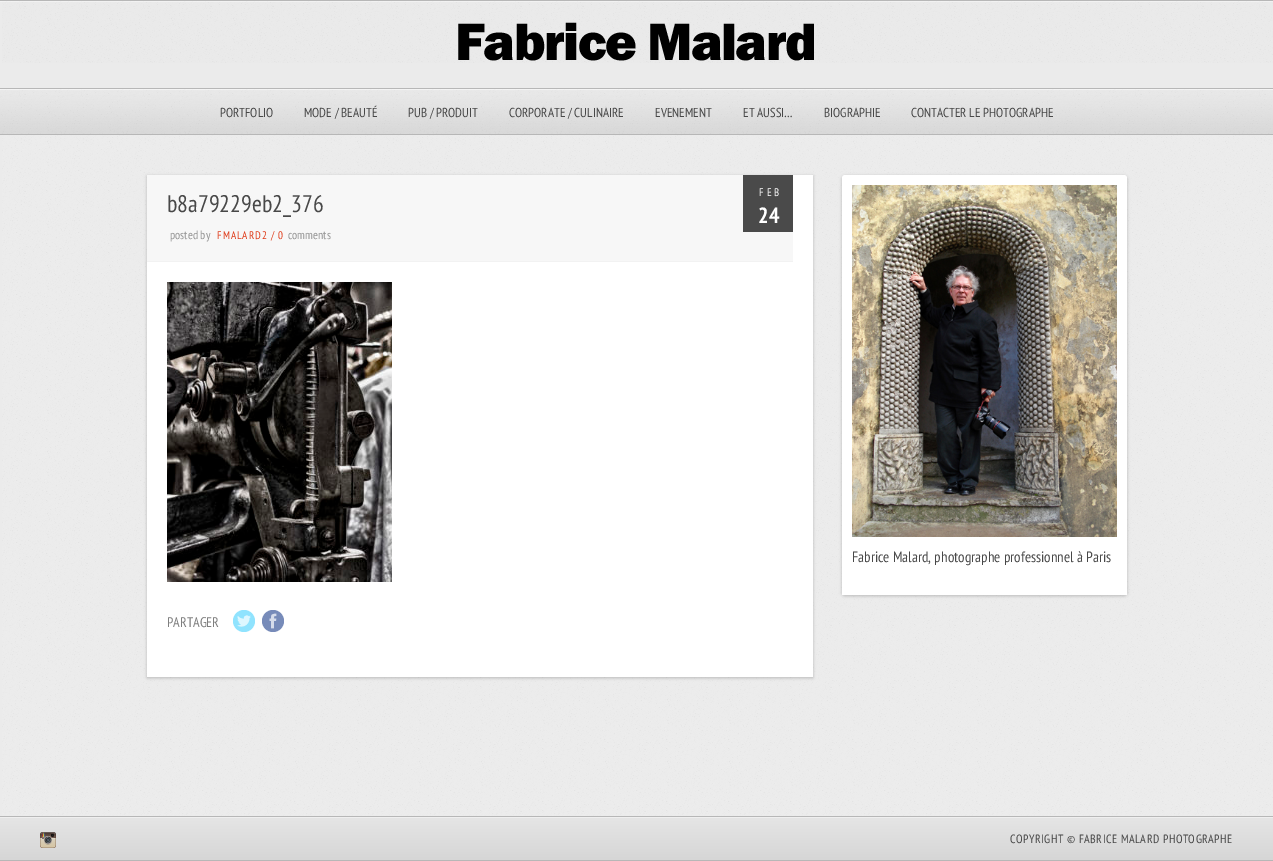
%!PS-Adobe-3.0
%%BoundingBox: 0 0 1273 861
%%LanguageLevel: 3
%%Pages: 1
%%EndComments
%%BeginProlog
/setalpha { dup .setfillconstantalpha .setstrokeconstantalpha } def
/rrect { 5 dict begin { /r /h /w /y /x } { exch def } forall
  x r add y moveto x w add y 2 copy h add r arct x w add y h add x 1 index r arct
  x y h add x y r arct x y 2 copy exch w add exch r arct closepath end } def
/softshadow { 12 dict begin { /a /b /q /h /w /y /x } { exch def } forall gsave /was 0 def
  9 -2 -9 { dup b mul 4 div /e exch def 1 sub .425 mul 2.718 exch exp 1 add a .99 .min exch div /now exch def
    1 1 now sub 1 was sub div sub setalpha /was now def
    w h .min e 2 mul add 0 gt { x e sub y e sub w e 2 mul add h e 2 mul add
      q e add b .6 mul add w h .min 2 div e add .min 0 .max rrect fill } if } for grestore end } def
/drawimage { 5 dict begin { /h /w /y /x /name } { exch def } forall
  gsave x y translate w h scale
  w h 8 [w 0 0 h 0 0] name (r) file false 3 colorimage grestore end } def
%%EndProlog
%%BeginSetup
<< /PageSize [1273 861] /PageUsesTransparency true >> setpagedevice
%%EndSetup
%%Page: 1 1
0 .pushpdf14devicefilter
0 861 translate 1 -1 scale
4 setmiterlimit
0.922 setgray
0 0 1273 861 rectfill
(images/1.raw) 2 135 1271 681 drawimage
(images/2.raw) 2 1 1271 62 drawimage
0.4 setalpha
1 setgray
0 1 1273 1 rectfill
1 setalpha
0.718 setgray
0 0 1273 1 rectfill
0 134 1273 1 rectfill
(images/3.raw) 458 22 356 39 drawimage
(images/4.raw) 0 89 1273 45 drawimage
0.4 setalpha
1 setgray
0 89 1273 1 rectfill
1 setalpha
0.718 setgray
0 88 1273 1 rectfill
0 setgray
147 176 666 502 0 1.5 0.2 softshadow
1 setgray
147 175 666 502 rectfill
0.969 setgray
147 175 646 86 rectfill
0.949 setgray
147 261 646 1 rectfill
0.29 setgray
743 175 50 57 rectfill
(images/5.raw) 167 282 225 300 drawimage
0.565 0.89 0.996 setrgbcolor
newpath 244 621 11 0 360 arc closepath fill
(images/6.raw) 237 615 14 12 drawimage
0.467 0.545 0.725 setrgbcolor
newpath 273 621 11 0 360 arc closepath fill
(images/7.raw) 269 613 8 16 drawimage
0 setgray
842 176 285 420 3 1.5 0.2 softshadow
1 setgray
newpath 845 175 moveto 1124 175 lineto 1125.5 175 1127 176.5 1127 178 curveto 1127 595 lineto 842 595 lineto 842 178 lineto 842 176.5 843.5 175 845 175 curveto closepath fill
(images/8.raw) 852 185 265 352 drawimage
gsave newpath 0 818 moveto 1273 818 lineto 1273 860 lineto 0 860 lineto closepath clip newpath
<< /ShadingType 2 /ColorSpace /DeviceRGB /Coords [637 817 637 860] /Extend [true true] /Function << /FunctionType 2 /Domain [0 1] /C0 [0.898 0.898 0.898] /C1 [0.839 0.839 0.839] /N 1 >> >> shfill grestore
0.937 setgray
0 817 1273 1 rectfill
0.718 setgray
0 816 1273 1 rectfill
0 860 1273 1 rectfill
(images/9.raw) 40 832 16 16 drawimage
/PTSansNarrow-Regular [13 0 0 -13 0 0] selectfont
0.282 setgray
220 117 moveto (PORTFOLIO) show
304 117 moveto (MODE / BEAUTÉ) show
408 117 moveto (PUB / PRODUIT) show
509 117 moveto (CORPORATE / CULINAIRE) show
655 117 moveto (EVENEMENT) show
743 117 moveto (ET AUSSI…) show
824 117 moveto (BIOGRAPHIE) show
911 117 moveto (CONTACTER LE PHOTOGRAPHE) show
/PTSansNarrow-Regular [24 0 0 -24 0 0] selectfont
167 212 moveto (b8a79229eb2_376) show
/PTSansNarrow-Regular [12 0 0 -12 0 0] selectfont
0.58 setgray
170 239 moveto (posted by) show
/PTSansNarrow-Regular [11 0 0 -11 0 0] selectfont
0.871 0.224 0.09 setrgbcolor
217 239 moveto 1 0 (FMALARD2 / 0) ashow
/PTSansNarrow-Regular [12 0 0 -12 0 0] selectfont
0.58 setgray
288 239 moveto (comments) show
/PTSansNarrow-Regular [11 0 0 -11 0 0] selectfont
1 setgray
759 196 moveto 3 0 (FEB) ashow
/PTSansNarrow-Bold [22 0 0 -22 0 0] selectfont
758 223 moveto (24) show
/PTSansNarrow-Regular [14 0 0 -14 0 0] selectfont
0.498 setgray
167 627 moveto (PARTAGER) show
/PTSansNarrow-Regular [15 0 0 -15 0 0] selectfont
0.282 setgray
852 562 moveto (Fabrice Malard, photographe professionnel à Paris) show
/PTSansNarrow-Regular [12 0 0 -12 0 0] selectfont
1010 843 moveto 0.5 0 (COPYRIGHT © FABRICE MALARD PHOTOGRAPHE) ashow
.poppdf14devicefilter showpage
%%EOF
